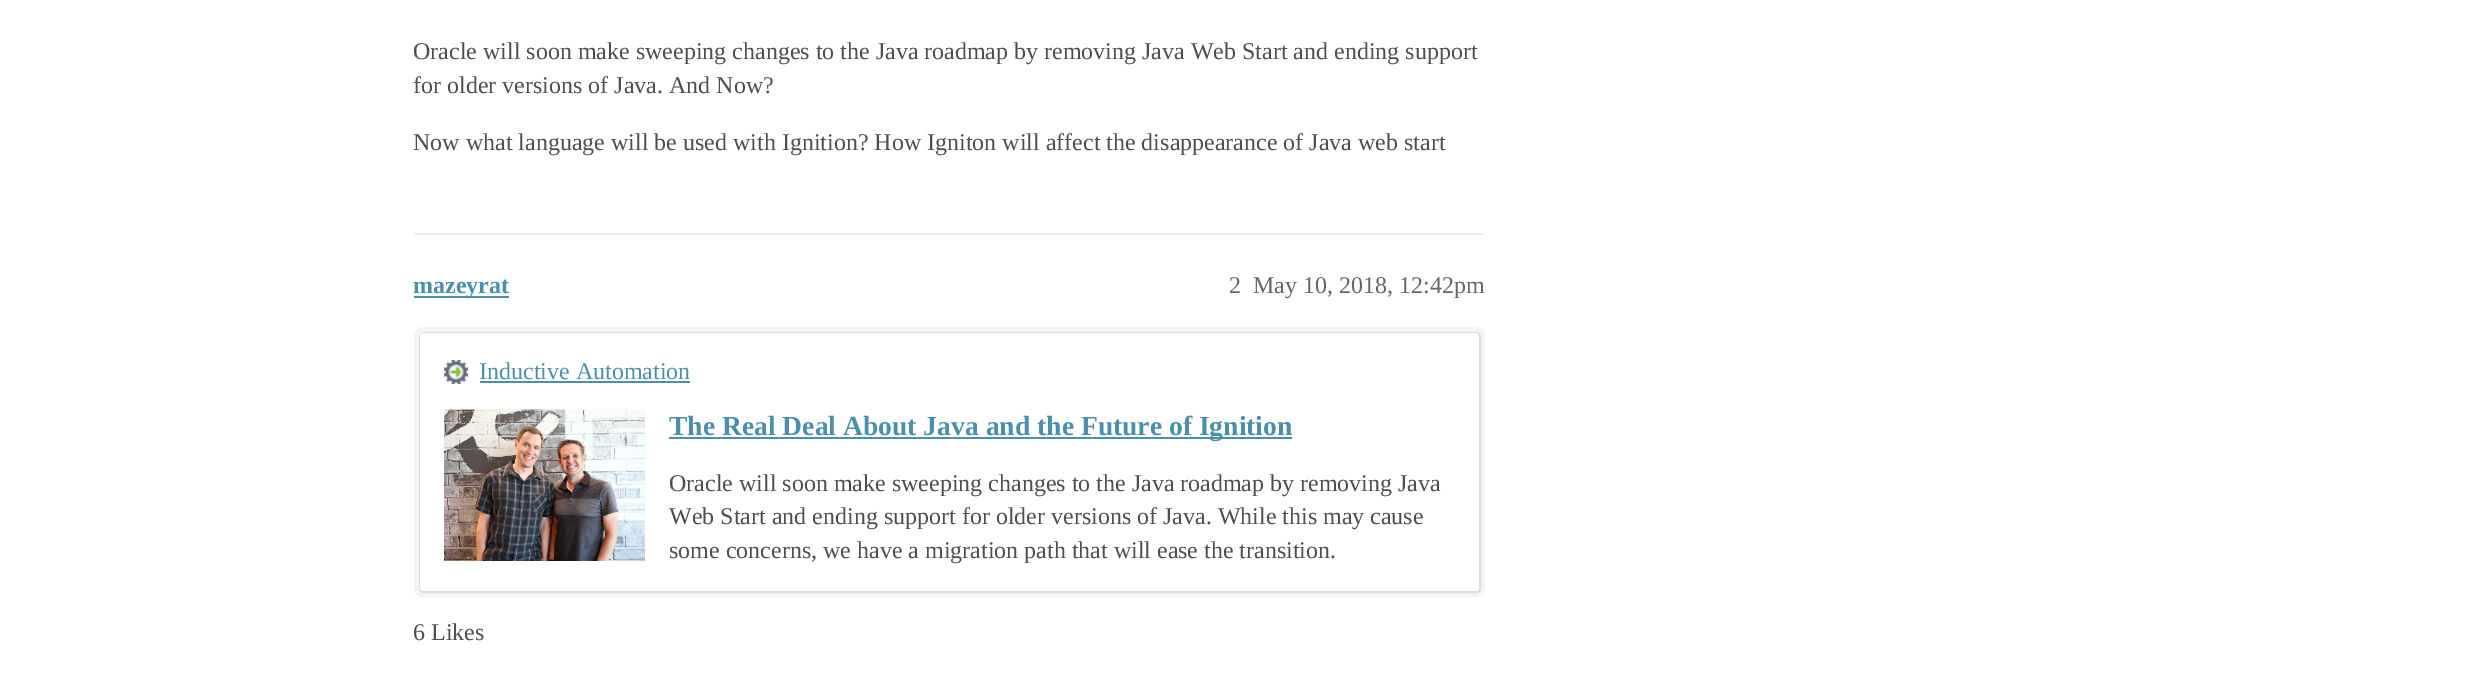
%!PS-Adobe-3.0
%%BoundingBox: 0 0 2491 680
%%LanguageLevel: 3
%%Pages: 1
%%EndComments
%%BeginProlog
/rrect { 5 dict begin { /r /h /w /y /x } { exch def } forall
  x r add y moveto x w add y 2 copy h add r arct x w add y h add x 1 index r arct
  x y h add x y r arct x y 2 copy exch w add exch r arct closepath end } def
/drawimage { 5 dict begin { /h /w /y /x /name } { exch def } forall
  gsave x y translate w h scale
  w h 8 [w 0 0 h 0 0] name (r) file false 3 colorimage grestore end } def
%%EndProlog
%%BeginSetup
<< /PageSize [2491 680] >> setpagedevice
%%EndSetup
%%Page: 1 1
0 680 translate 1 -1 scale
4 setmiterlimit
1 setgray
0 0 2491 680 rectfill
0.929 setgray
414 233 1071 2 rectfill
0.294 0.561 0.675 setrgbcolor
414 296 95 2 rectfill
0.957 setgray
6 setlinewidth
417 330 1065 264 6 rrect stroke
0.863 setgray
2 setlinewidth
420 333 1060 259 4 rrect stroke
1 setgray
420 333 1059 258 3 rrect fill
(images/1.raw) 444 360 24 24 drawimage
0.294 0.561 0.675 setrgbcolor
480 381 210 2 rectfill
(images/2.raw) 444 409 201 152 drawimage
669 437 623 2 rectfill
/LiberationSerif-Regular [24 0 0 -24 0 0] selectfont
0.306 setgray
413 59 moveto (Oracle will soon make sweeping changes to the Java roadmap by removing Java Web Start and ending support) show
413 93 moveto (for older versions of Java. And Now?) show
413 150 moveto (Now what language will be used with Ignition? How Igniton will affect the disappearance of Java web start) show
/LiberationSerif-Bold [24 0 0 -24 0 0] selectfont
0.294 0.561 0.675 setrgbcolor
413 293 moveto (mazeyrat) show
/LiberationSerif-Regular [24 0 0 -24 0 0] selectfont
0.4 setgray
1229 293 moveto (2) show
1253 293 moveto (May 10, 2018, 12:42pm) show
0.294 0.561 0.675 setrgbcolor
479 379 moveto (Inductive Automation) show
/LiberationSerif-Bold [27.6 0 0 -27.6 0 0] selectfont
669 435 moveto (The Real Deal About Java and the Future of Ignition) show
/LiberationSerif-Regular [24 0 0 -24 0 0] selectfont
0.306 setgray
669 491 moveto (Oracle will soon make sweeping changes to the Java roadmap by removing Java) show
669 524 moveto (Web Start and ending support for older versions of Java. While this may cause) show
669 558 moveto (some concerns, we have a migration path that will ease the transition.) show
413 640 moveto (6 Likes) show
showpage
%%EOF
